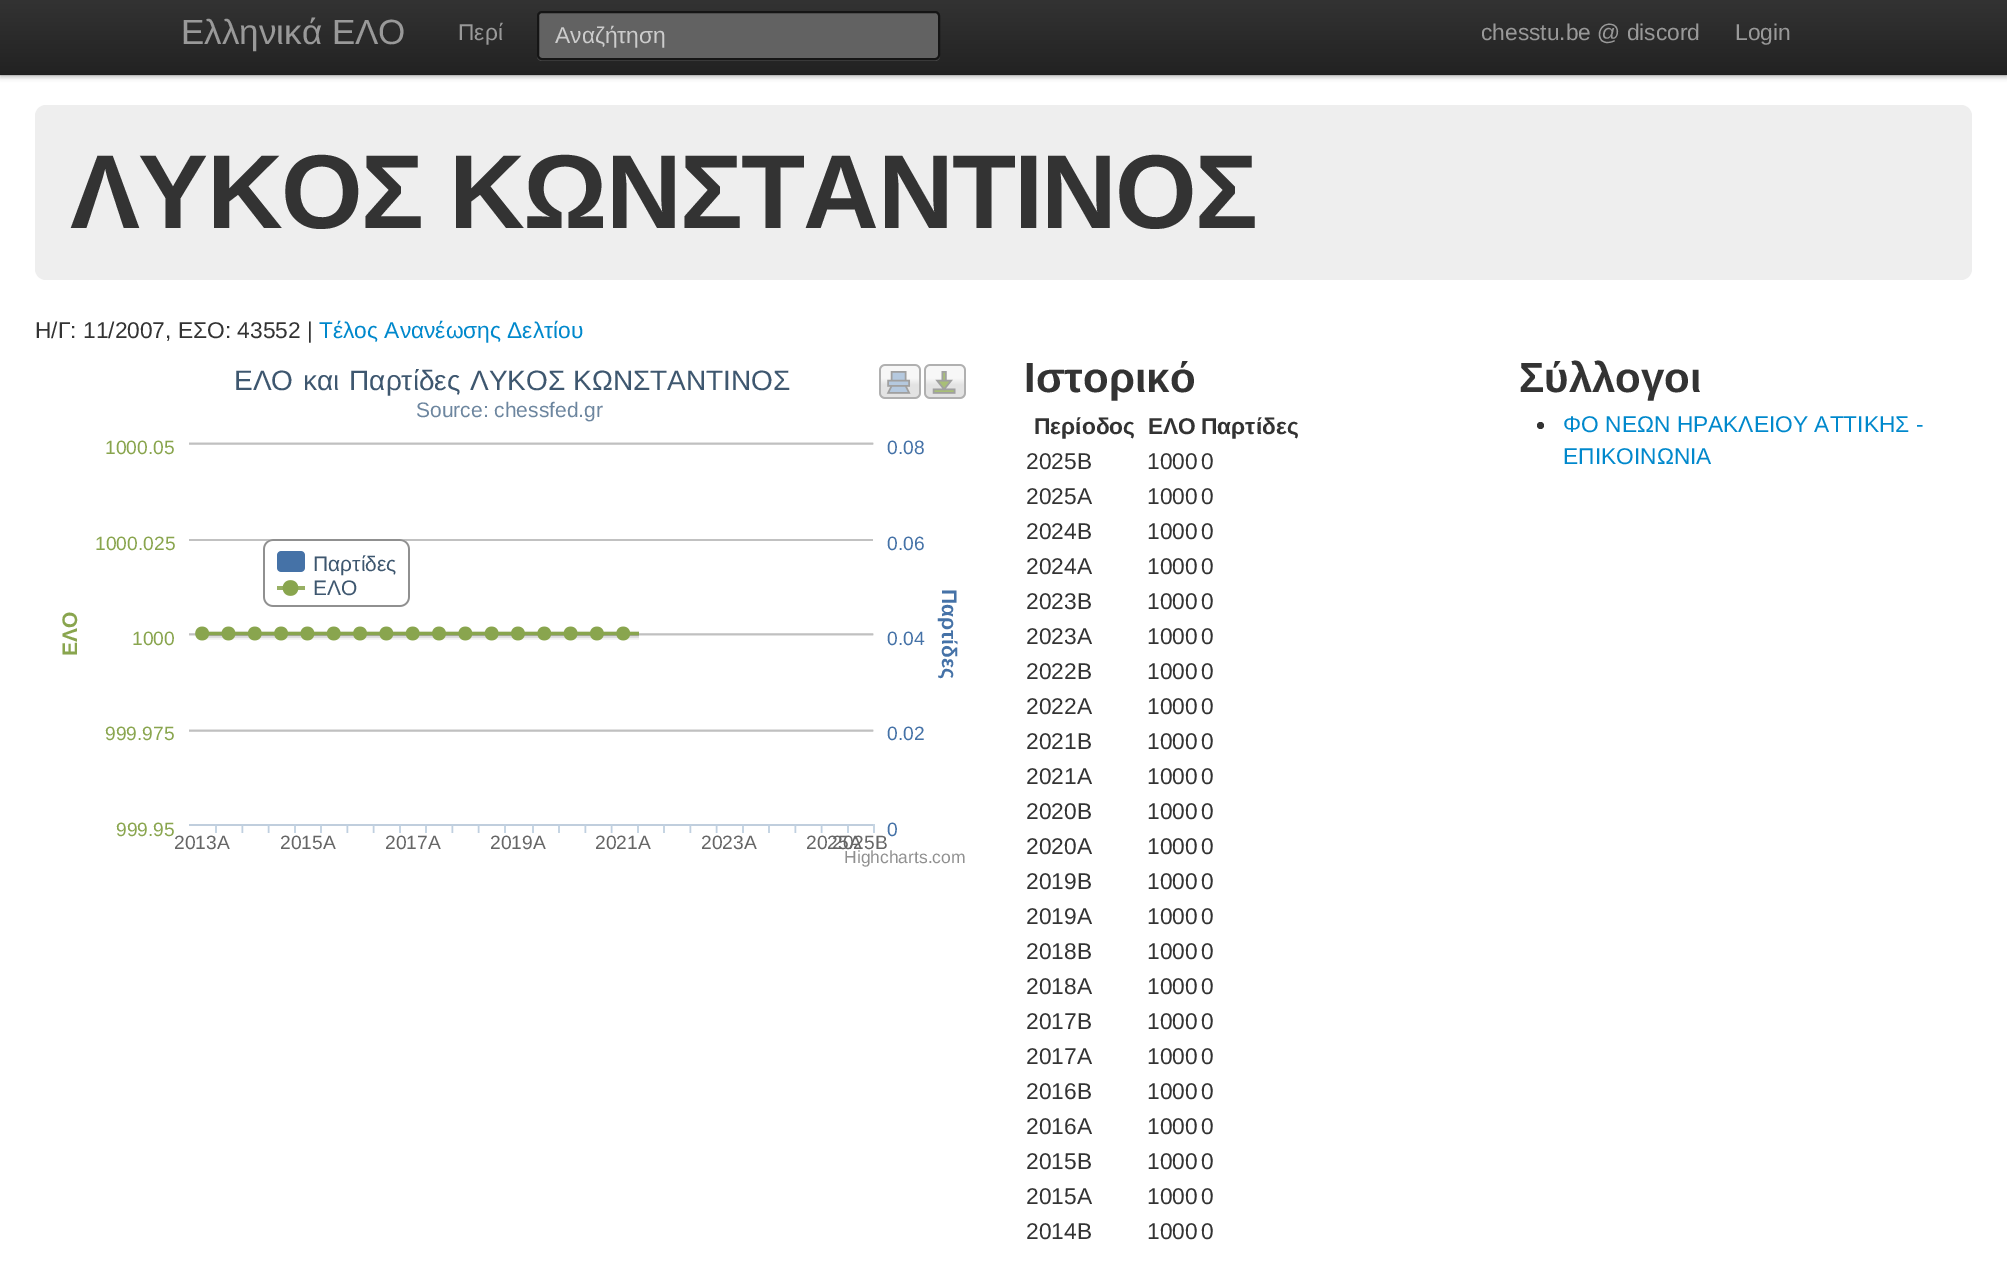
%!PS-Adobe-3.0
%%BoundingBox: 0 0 2007 1268
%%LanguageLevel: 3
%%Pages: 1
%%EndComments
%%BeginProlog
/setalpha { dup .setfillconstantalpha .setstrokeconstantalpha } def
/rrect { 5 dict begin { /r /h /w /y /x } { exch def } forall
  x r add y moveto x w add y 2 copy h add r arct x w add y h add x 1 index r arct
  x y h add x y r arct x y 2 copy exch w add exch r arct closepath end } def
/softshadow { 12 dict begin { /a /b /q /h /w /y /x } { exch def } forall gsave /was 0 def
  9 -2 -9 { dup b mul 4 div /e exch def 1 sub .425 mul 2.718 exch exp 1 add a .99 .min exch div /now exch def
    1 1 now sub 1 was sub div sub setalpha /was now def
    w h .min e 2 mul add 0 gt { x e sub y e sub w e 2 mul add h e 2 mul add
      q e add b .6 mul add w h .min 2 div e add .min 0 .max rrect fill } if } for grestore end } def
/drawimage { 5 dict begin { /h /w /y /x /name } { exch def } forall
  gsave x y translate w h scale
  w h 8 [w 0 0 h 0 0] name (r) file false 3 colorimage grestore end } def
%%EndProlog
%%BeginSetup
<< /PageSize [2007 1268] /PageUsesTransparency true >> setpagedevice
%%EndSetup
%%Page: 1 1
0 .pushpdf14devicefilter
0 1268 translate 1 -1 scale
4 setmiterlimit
1 setgray
0 0 2007 1268 rectfill
0 setgray
0 2 2007 75 0 2.5 0.25 softshadow
gsave newpath 0 0 moveto 2007 0 lineto 2007 75 lineto 0 75 lineto closepath clip newpath
<< /ShadingType 2 /ColorSpace /DeviceRGB /Coords [1004 0 1004 75] /Extend [true true] /Function << /FunctionType 2 /Domain [0 1] /C0 [0.2 0.2 0.2] /C1 [0.133 0.133 0.133] /N 1 >> >> shfill grestore
0.1 setalpha
0 74 2007 2 rectfill
1 setalpha
0.275 setgray
newpath 537 15 moveto 537 56 lineto 537 59 539 61 542 61 curveto 935 61 lineto 938 61 940 59 940 56 curveto 940 15 lineto 940 54 lineto 940 57 937 60 934 60 curveto 542 60 lineto 540 60 537 57 537 54 curveto closepath fill
0.384 setgray
538 12 401 47 4 rrect gsave fill grestore
0.082 setgray
2 setlinewidth
stroke
0.933 setgray
35 105 1937 175 11 rrect fill
(images/1.raw) 189 364 777 469 drawimage
0.2 setgray
newpath 1540.5 425.5 3.5 0 360 arc closepath fill
/LiberationSans-Regular [35 0 0 -35 0 0] selectfont
0.6 setgray
181 44 moveto (Ελληνικά ΕΛΟ) show
/LiberationSans-Regular [22.75 0 0 -22.75 0 0] selectfont
458 40 moveto (Περί) show
0.8 setgray
555 43 moveto (Αναζήτηση) show
0.6 setgray
1481 40 moveto (chesstu.be @ discord) show
1735 40 moveto (Login) show
/LiberationSans-Bold [105 0 0 -105 0 0] selectfont
0.2 setgray
70 228 moveto -1.75 0 (ΛΥΚΟΣ ΚΩΝΣΤΑΝΤΙΝΟΣ) ashow
/LiberationSans-Regular [22.75 0 0 -22.75 0 0] selectfont
35 338 moveto (Η/Γ: 11/2007, ΕΣΟ: 43552 |) show
0 0.533 0.8 setrgbcolor
319 338 moveto (Τέλος Ανανέωσης Δελτίου) show
/LiberationSans-Regular [28 0 0 -28 0 0] selectfont
0.243 0.341 0.435 setrgbcolor
234 390 moveto 2 0 32 (ΕΛΟ και Παρτίδες ΛΥΚΟΣ) widthshow
573 390 moveto 2 0 32 (ΚΩΝΣΤΑΝΤΙΝΟΣ) widthshow
/LiberationSans-Regular [21 0 0 -21 0 0] selectfont
0.427 0.525 0.624 setrgbcolor
416 417 moveto (Source: chessfed.gr) show
/LiberationSans-Regular [19.25 0 0 -19.25 0 0] selectfont
0.537 0.647 0.306 setrgbcolor
105 454 moveto (1000.05) show
0.271 0.447 0.655 setrgbcolor
887 454 moveto (0.08) show
0.537 0.647 0.306 setrgbcolor
95 550 moveto (1000.025) show
0.271 0.447 0.655 setrgbcolor
887 550 moveto (0.06) show
/LiberationSans-Regular [21 0 0 -21 0 0] selectfont
0.243 0.341 0.435 setrgbcolor
313 571 moveto (Παρτίδες) show
313 595 moveto (ΕΛΟ) show
/LiberationSans-Bold [21 0 0 -21 0 0] selectfont
0.537 0.647 0.306 setrgbcolor
gsave 77 656 translate -90 rotate 0 0 moveto (ΕΛΟ) show grestore
/LiberationSans-Regular [19.25 0 0 -19.25 0 0] selectfont
132 645 moveto (1000) show
0.271 0.447 0.655 setrgbcolor
887 645 moveto (0.04) show
/LiberationSans-Bold [21 0 0 -21 0 0] selectfont
gsave 942 589 translate 90 rotate 0 0 moveto (Παρτίδες) show grestore
/LiberationSans-Regular [19.25 0 0 -19.25 0 0] selectfont
0.537 0.647 0.306 setrgbcolor
105 740 moveto (999.975) show
0.271 0.447 0.655 setrgbcolor
887 740 moveto (0.02) show
0.537 0.647 0.306 setrgbcolor
116 836 moveto (999.95) show
0.271 0.447 0.655 setrgbcolor
887 836 moveto (0) show
0.4 setgray
174 849 moveto (2013A) show
280 849 moveto (2015A) show
385 849 moveto (2017A) show
490 849 moveto (2019A) show
595 849 moveto (2021A) show
701 849 moveto (2023Α) show
806 849 moveto (2025A) show
832 849 moveto (2025B) show
/LiberationSans-Regular [17.5 0 0 -17.5 0 0] selectfont
0.565 setgray
844 863 moveto (Highcharts.com) show
/LiberationSans-Bold [42 0 0 -42 0 0] selectfont
0.2 setgray
1024 392 moveto (Ιστορικό) show
/LiberationSans-Bold [22.75 0 0 -22.75 0 0] selectfont
1034 434 moveto (Περίοδος) show
1148 434 moveto (ΕΛΟ) show
1201 434 moveto (Παρτίδες) show
/LiberationSans-Regular [22.75 0 0 -22.75 0 0] selectfont
1026 469 moveto (2025B) show
1147 469 moveto (1000) show
1201 469 moveto (0) show
1026 504 moveto (2025A) show
1147 504 moveto (1000) show
1201 504 moveto (0) show
1026 539 moveto (2024B) show
1147 539 moveto (1000) show
1201 539 moveto (0) show
1026 574 moveto (2024A) show
1147 574 moveto (1000) show
1201 574 moveto (0) show
1026 609 moveto (2023B) show
1147 609 moveto (1000) show
1201 609 moveto (0) show
1026 644 moveto (2023Α) show
1147 644 moveto (1000) show
1201 644 moveto (0) show
1026 679 moveto (2022B) show
1147 679 moveto (1000) show
1201 679 moveto (0) show
1026 714 moveto (2022A) show
1147 714 moveto (1000) show
1201 714 moveto (0) show
1026 749 moveto (2021B) show
1147 749 moveto (1000) show
1201 749 moveto (0) show
1026 784 moveto (2021A) show
1147 784 moveto (1000) show
1201 784 moveto (0) show
1026 819 moveto (2020B) show
1147 819 moveto (1000) show
1201 819 moveto (0) show
1026 854 moveto (2020A) show
1147 854 moveto (1000) show
1201 854 moveto (0) show
1026 889 moveto (2019B) show
1147 889 moveto (1000) show
1201 889 moveto (0) show
1026 924 moveto (2019A) show
1147 924 moveto (1000) show
1201 924 moveto (0) show
1026 959 moveto (2018B) show
1147 959 moveto (1000) show
1201 959 moveto (0) show
1026 994 moveto (2018A) show
1147 994 moveto (1000) show
1201 994 moveto (0) show
1026 1029 moveto (2017B) show
1147 1029 moveto (1000) show
1201 1029 moveto (0) show
1026 1064 moveto (2017A) show
1147 1064 moveto (1000) show
1201 1064 moveto (0) show
1026 1099 moveto (2016B) show
1147 1099 moveto (1000) show
1201 1099 moveto (0) show
1026 1134 moveto (2016A) show
1147 1134 moveto (1000) show
1201 1134 moveto (0) show
1026 1169 moveto (2015B) show
1147 1169 moveto (1000) show
1201 1169 moveto (0) show
1026 1204 moveto (2015A) show
1147 1204 moveto (1000) show
1201 1204 moveto (0) show
1026 1239 moveto (2014B) show
1147 1239 moveto (1000) show
1201 1239 moveto (0) show
/LiberationSans-Bold [42 0 0 -42 0 0] selectfont
1519 392 moveto (Σύλλογοι) show
/LiberationSans-Regular [22.75 0 0 -22.75 0 0] selectfont
0 0.533 0.8 setrgbcolor
1563 432 moveto (ΦΟ ΝΕΩΝ ΗΡΑΚΛΕΙΟΥ ΑΤΤΙΚΗΣ -) show
1563 464 moveto (ΕΠΙΚΟΙΝΩΝΙΑ) show
.poppdf14devicefilter showpage
%%EOF
